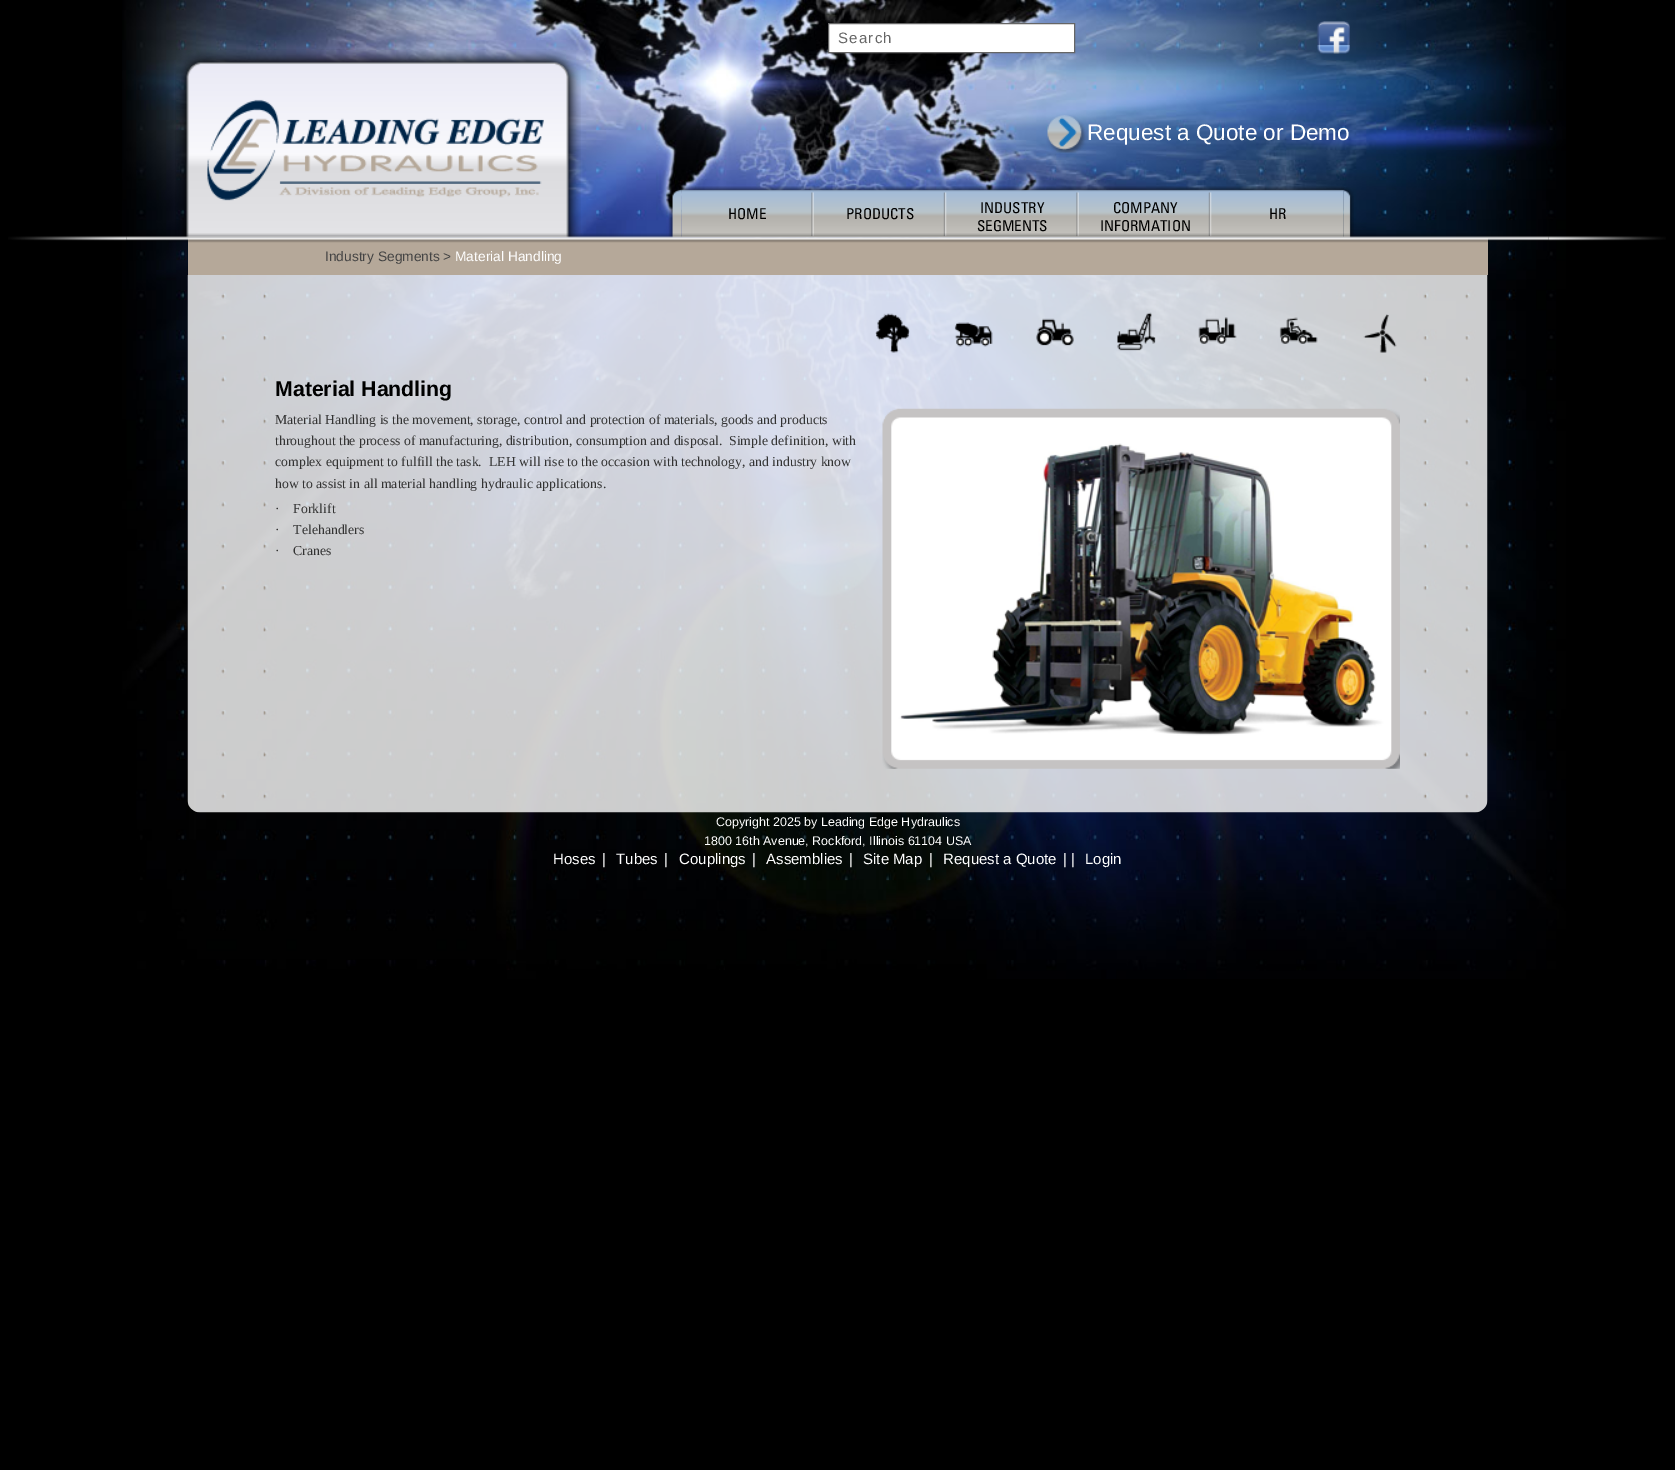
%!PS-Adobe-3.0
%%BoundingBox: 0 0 1675 1470
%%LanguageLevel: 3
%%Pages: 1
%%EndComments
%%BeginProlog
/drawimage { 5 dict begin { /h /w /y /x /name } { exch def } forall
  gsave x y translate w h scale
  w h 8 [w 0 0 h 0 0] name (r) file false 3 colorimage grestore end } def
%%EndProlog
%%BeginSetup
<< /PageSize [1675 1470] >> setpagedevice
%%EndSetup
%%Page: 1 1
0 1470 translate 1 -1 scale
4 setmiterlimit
0 setgray
0 0 1675 1470 rectfill
(images/1.raw) 122 0 1444 979 drawimage
(images/2.raw) 175 49 406 189 drawimage
1 setgray
newpath 828.5 23.5 moveto 1074.5 23.5 lineto 1074.5 52.5 lineto 828.5 52.5 lineto closepath gsave fill grestore
0.4 setgray
stroke
(images/3.raw) 1317 21 33 33 drawimage
(images/4.raw) 1047 115 40 38 drawimage
(images/5.raw) 668 189 14 49 drawimage
(images/6.raw) 1343 187 11 51 drawimage
(images/7.raw) 681 186 663 52 drawimage
(images/8.raw) 811 192 3 45 drawimage
(images/9.raw) 943 192 4 45 drawimage
(images/8.raw) 1076 192 3 45 drawimage
(images/9.raw) 1208 192 4 45 drawimage
(images/10.raw) 8 236 119 5 drawimage
(images/11.raw) 1548 236 118 5 drawimage
0.71 0.659 0.6 setrgbcolor
188 238 1300 37 rectfill
(images/12.raw) 126 233 1423 10 drawimage
(images/13.raw) 187 275 1301 538 drawimage
(images/14.raw) 221 293 1248 506 drawimage
(images/15.raw) 875 313 35 40 drawimage
(images/16.raw) 954 322 39 25 drawimage
(images/17.raw) 1036 318 38 28 drawimage
(images/18.raw) 1117 312 39 39 drawimage
(images/19.raw) 1198 317 39 27 drawimage
(images/20.raw) 1279 317 39 27 drawimage
(images/21.raw) 1363 314 34 39 drawimage
(images/22.raw) 882 408 518 361 drawimage
/LiberationSans-Regular [15 0 0 -15 0 0] selectfont
0.4 setgray
838 43 moveto 1.25 0 (Search) ashow
/LiberationSans-Regular [22.5 0 0 -22.5 0 0] selectfont
1 setgray
1087 140 moveto (Request a Quote or Demo) show
/Univers-Regular [15 0 0 -15 0 0] selectfont
0 setgray
728 219 moveto (HOME) show
846 219 moveto (PRODUCTS) show
980 213 moveto (INDUSTRY) show
977 231 moveto (SEGMENTS) show
1113 213 moveto (COMPANY) show
1100 231 moveto (INFORMATION) show
1269 219 moveto (HR) show
/LiberationSans-Regular [13.75 0 0 -13.75 0 0] selectfont
0.267 setgray
325 261 moveto (Industry Segments >) show
1 setgray
455 261 moveto (Material Handling) show
/LiberationSans-Bold [21.25 0 0 -21.25 0 0] selectfont
0 setgray
275 396 moveto (Material Handling) show
/LiberationSerif-Regular [13.75 0 0 -13.75 0 0] selectfont
0.2 setgray
275 424 moveto (Material Handling is the movement, storage, control and protection of materials, goods and products) show
275 445 moveto (throughout the process of manufacturing, distribution, consumption and disposal.  Simple definition, with) show
275 466 moveto (complex equipment to fulfill the task.  LEH will rise to the occasion with technology, and industry know) show
275 488 moveto (how to assist in all material handling hydraulic applications.) show
275 513 moveto (·    Forklift) show
275 534 moveto (·    Telehandlers) show
275 555 moveto (·    Cranes) show
/LiberationSans-Regular [12.5 0 0 -12.5 0 0] selectfont
1 setgray
716 826 moveto (Copyright 2025 by Leading Edge Hydraulics) show
704 845 moveto (1800 16th Avenue, Rockford, Illinois 61104 USA) show
/LiberationSans-Regular [15 0 0 -15 0 0] selectfont
553 864 moveto (Hoses) show
602 864 moveto (|) show
616 864 moveto (Tubes) show
664 864 moveto (|) show
679 864 moveto (Couplings) show
752 864 moveto (|) show
766 864 moveto (Assemblies) show
849 864 moveto (|) show
863 864 moveto (Site Map) show
929 864 moveto (|) show
943 864 moveto (Request a Quote) show
1063 864 moveto (| |) show
1085 864 moveto (Login) show
showpage
%%EOF
